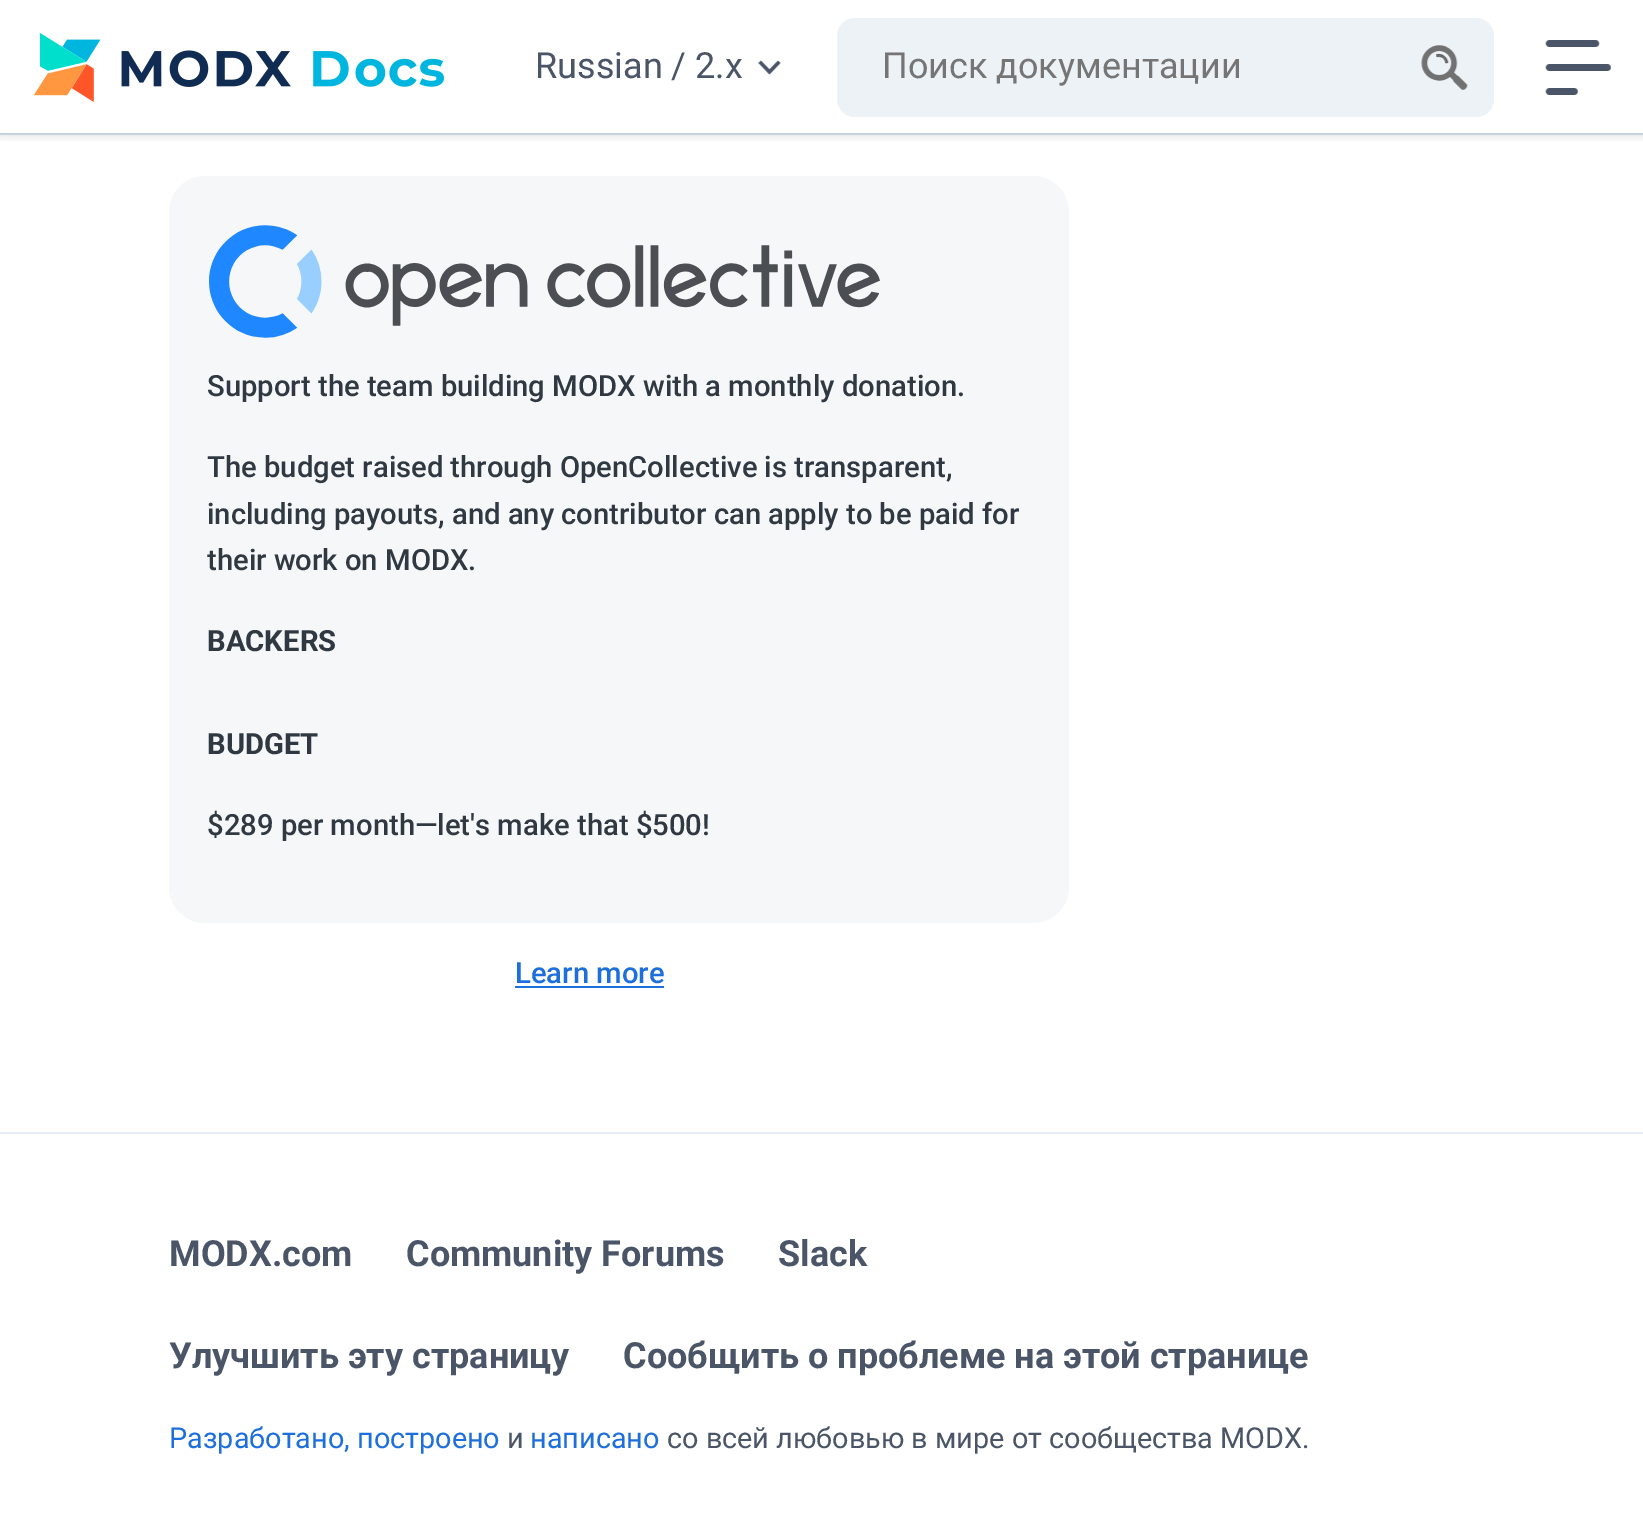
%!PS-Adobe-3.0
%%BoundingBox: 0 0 1643 1531
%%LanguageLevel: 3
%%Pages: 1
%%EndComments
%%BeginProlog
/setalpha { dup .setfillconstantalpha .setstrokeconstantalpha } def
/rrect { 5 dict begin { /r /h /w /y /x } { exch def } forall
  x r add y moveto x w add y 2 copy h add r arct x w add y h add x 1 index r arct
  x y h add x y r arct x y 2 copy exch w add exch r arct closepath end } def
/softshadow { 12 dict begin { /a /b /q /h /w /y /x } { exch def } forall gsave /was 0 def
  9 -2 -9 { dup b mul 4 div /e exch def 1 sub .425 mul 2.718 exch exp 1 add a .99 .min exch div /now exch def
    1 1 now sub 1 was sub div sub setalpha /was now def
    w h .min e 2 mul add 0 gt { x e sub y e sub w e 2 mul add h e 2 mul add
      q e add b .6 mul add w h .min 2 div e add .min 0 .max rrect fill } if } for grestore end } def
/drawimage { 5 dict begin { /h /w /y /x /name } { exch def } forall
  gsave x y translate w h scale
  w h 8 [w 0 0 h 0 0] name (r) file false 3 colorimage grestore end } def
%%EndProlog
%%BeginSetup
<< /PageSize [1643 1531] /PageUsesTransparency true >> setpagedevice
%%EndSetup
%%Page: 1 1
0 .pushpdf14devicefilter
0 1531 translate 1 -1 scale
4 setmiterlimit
1 setgray
0 0 1643 1531 rectfill
gsave
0 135 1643 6 rectclip
0 setgray
0 2 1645 135 0 4.5 0.1 softshadow
grestore
0.773 0.827 0.875 setrgbcolor
0 133 1643 2 rectfill
(images/1.raw) 34 33 410 69 drawimage
(images/2.raw) 758 60 23 15 drawimage
0.929 0.949 0.969 setrgbcolor
837 18 657 99 18 rrect fill
(images/3.raw) 1421 45 47 45 drawimage
(images/4.raw) 1545 40 66 55 drawimage
0.961 0.969 0.976 setrgbcolor
169 176 900 747 36 rrect fill
(images/5.raw) 209 225 671 113 drawimage
0.11 0.435 0.863 setrgbcolor
515 986 149 2 rectfill
0.902 0.925 0.945 setrgbcolor
0 1132 1643 2 rectfill
/Roboto-Regular [36 0 0 -36 0 0] selectfont
0.29 0.333 0.408 setrgbcolor
535 78 moveto (Russian / 2.x) show
0.459 setgray
882 78 moveto (Поиск документации) show
/Roboto-Medium [29.25 0 0 -29.25 0 0] selectfont
0.188 0.224 0.259 setrgbcolor
207 396 moveto (Support the team building MODX with a monthly donation.) show
207 477 moveto (The budget raised through OpenCollective is transparent,) show
207 524 moveto (including payouts, and any contributor can apply to be paid for) show
207 570 moveto (their work on MODX.) show
/Roboto-Bold [29.25 0 0 -29.25 0 0] selectfont
207 651 moveto (BACKERS) show
207 754 moveto (BUDGET) show
/Roboto-Medium [29.25 0 0 -29.25 0 0] selectfont
207 835 moveto ($289 per month—let's make that $500!) show
0.11 0.435 0.863 setrgbcolor
515 983 moveto (Learn more) show
/Roboto-Bold [36 0 0 -36 0 0] selectfont
0.29 0.333 0.408 setrgbcolor
169 1266 moveto (MODX.com) show
406 1266 moveto (Community Forums) show
778 1266 moveto (Slack) show
169 1368 moveto (Улучшить эту страницу) show
623 1368 moveto (Сообщить о проблеме на этой странице) show
/Roboto-Regular [28.8 0 0 -28.8 0 0] selectfont
0.11 0.435 0.863 setrgbcolor
169 1448 moveto (Разработано, построено) show
0.29 0.333 0.408 setrgbcolor
507 1448 moveto (и) show
0.11 0.435 0.863 setrgbcolor
530 1448 moveto (написано) show
0.29 0.333 0.408 setrgbcolor
667 1448 moveto (со всей любовью в мире от сообщества MODX.) show
.poppdf14devicefilter showpage
%%EOF
